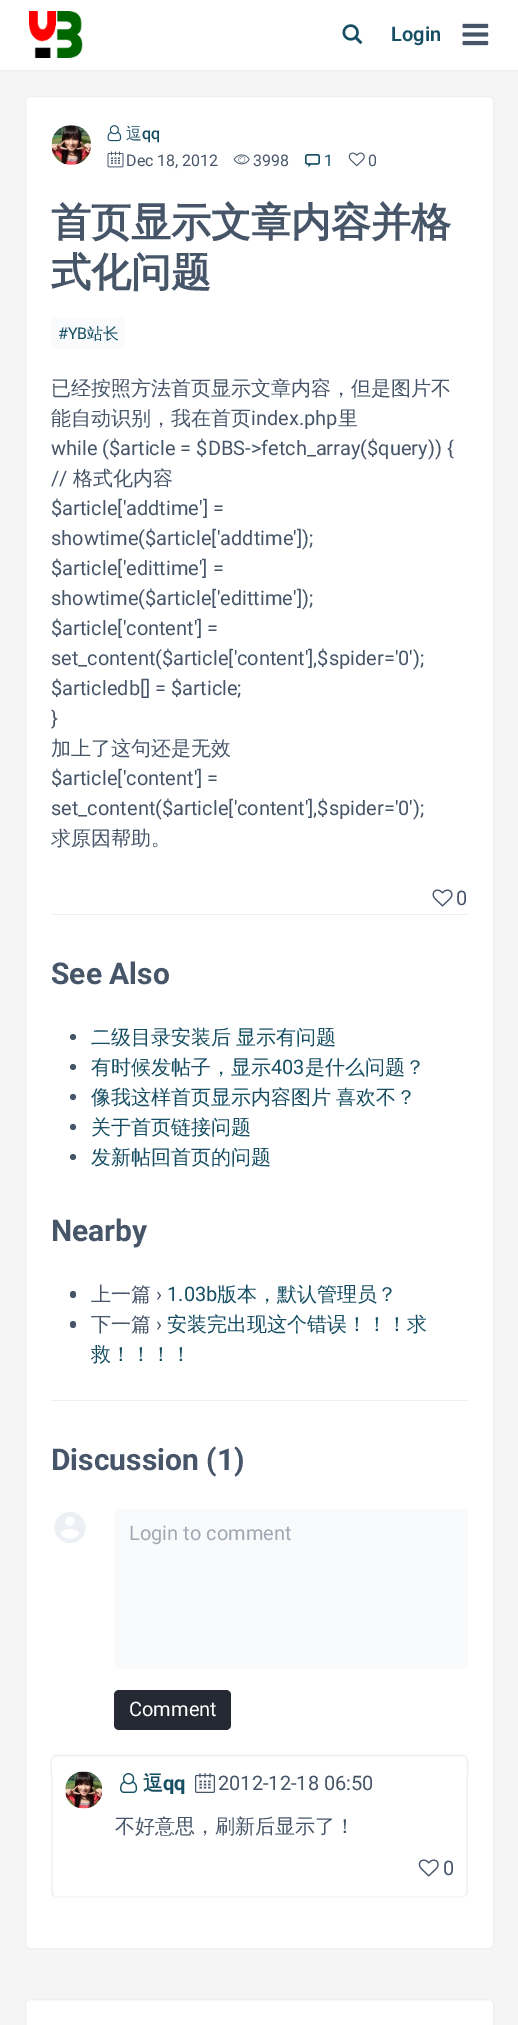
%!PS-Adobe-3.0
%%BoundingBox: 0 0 518 2025
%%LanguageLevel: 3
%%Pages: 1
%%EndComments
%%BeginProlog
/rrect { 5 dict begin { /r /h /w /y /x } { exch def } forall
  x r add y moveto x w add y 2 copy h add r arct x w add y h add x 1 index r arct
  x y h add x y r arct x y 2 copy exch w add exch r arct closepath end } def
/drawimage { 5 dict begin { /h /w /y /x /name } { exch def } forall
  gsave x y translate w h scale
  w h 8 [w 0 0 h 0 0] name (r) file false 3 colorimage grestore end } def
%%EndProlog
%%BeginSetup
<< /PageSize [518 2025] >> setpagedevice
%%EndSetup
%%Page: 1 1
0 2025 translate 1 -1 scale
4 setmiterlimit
0.961 setgray
0 0 518 2025 rectfill
1 setgray
0 0 518 70 rectfill
0.925 0.937 0.957 setrgbcolor
0 70 518 1 rectfill
(images/1.raw) 29 11 54 47 drawimage
(images/2.raw) 342 24 21 21 drawimage
(images/3.raw) 462 23 27 23 drawimage
1 setgray
25.5 96.5 468 1852 4.5 rrect gsave fill grestore
0.925 0.937 0.957 setrgbcolor
stroke
(images/4.raw) 51 125 40 40 drawimage
(images/5.raw) 107 125 15 17 drawimage
(images/6.raw) 107 151 17 17 drawimage
(images/7.raw) 233 154 17 11 drawimage
(images/8.raw) 305 154 15 14 drawimage
(images/9.raw) 348 152 17 15 drawimage
0.973 0.98 0.988 setrgbcolor
51 318 74 31 5 rrect fill
(images/10.raw) 432 889 21 18 drawimage
0.925 0.937 0.957 setrgbcolor
51 914 417 1 rectfill
0.278 0.333 0.412 setrgbcolor
newpath 73 1037 3 0 360 arc closepath fill
newpath 73 1067 3 0 360 arc closepath fill
newpath 73 1097 3 0 360 arc closepath fill
newpath 73 1127 3 0 360 arc closepath fill
newpath 73 1157 3 0 360 arc closepath fill
70 1291 6 7 3 rrect fill
70 1321 6 7 3 rrect fill
0.925 0.937 0.957 setrgbcolor
51 1400 417 1 rectfill
(images/11.raw) 54 1512 32 31 drawimage
0.973 0.98 0.988 setrgbcolor
114 1509 354 160 5 rrect fill
0.141 0.161 0.2 setrgbcolor
114 1690 117 40 5 rrect fill
0.961 setgray
1.2 setlinewidth
newpath 465.5 1895.5 moveto 462.5 1897 lineto 56 1897 lineto 53 1895.5 lineto stroke
0.925 0.937 0.957 setrgbcolor
newpath 53 1895.5 moveto 52 1892.5 lineto 52 1782 lineto 52 1773.5 48 1755.5 56 1755.5 curveto 462.5 1755.5 lineto 470.5 1755.5 467 1773.5 467 1782 curveto 467 1892.5 lineto 465.5 1895.5 lineto stroke
(images/12.raw) 65 1771 38 38 drawimage
(images/13.raw) 120 1773 18 20 drawimage
(images/14.raw) 195 1773 20 20 drawimage
(images/15.raw) 418 1859 21 18 drawimage
1 setgray
25.5 1999.5 468 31 4.5 rrect gsave fill grestore
0.925 0.937 0.957 setrgbcolor
1 setlinewidth
stroke
/Roboto-SemiBold [20 0 0 -20 0 0] selectfont
0.086 0.306 0.388 setrgbcolor
391 41 moveto (Login) show
/WenQuanYiZenHei-Medium [16 0 0 -16 0 0] selectfont
126 139 moveto (逗) show
/Roboto-Medium [16 0 0 -16 0 0] selectfont
142 139 moveto (qq) show
/Roboto-Regular [16 0 0 -16 0 0] selectfont
0.278 0.333 0.412 setrgbcolor
126 166 moveto (Dec 18, 2012) show
253 166 moveto (3998) show
0.086 0.306 0.388 setrgbcolor
324 166 moveto (1) show
0.278 0.333 0.412 setrgbcolor
368 166 moveto (0) show
/WenQuanYiZenHei-Bold [40 0 0 -40 0 0] selectfont
51 236 moveto (首页显示文章内容并格) show
51 286 moveto (式化问题) show
/Roboto-Regular [16 0 0 -16 0 0] selectfont
0.086 0.306 0.388 setrgbcolor
58 339 moveto (#YB) show
/WenQuanYiZenHei-Medium [16 0 0 -16 0 0] selectfont
87 339 moveto (站长) show
/WenQuanYiZenHei-Medium [20 0 0 -20 0 0] selectfont
0.278 0.333 0.412 setrgbcolor
51 395 moveto (已经按照方法首页显示文章内容，但是图片不) show
51 425 moveto (能自动识别，我在首页) show
/Roboto-Regular [20 0 0 -20 0 0] selectfont
251 425 moveto (index.php) show
/WenQuanYiZenHei-Medium [20 0 0 -20 0 0] selectfont
338 425 moveto (里) show
/Roboto-Regular [20 0 0 -20 0 0] selectfont
51 455 moveto (while \($article = $DBS->fetch_array\($query\)\) {) show
51 485 moveto (//) show
/WenQuanYiZenHei-Medium [20 0 0 -20 0 0] selectfont
73 485 moveto (格式化内容) show
/Roboto-Regular [20 0 0 -20 0 0] selectfont
51 515 moveto ($article['addtime'] =) show
51 545 moveto (showtime\($article['addtime']\);) show
51 575 moveto ($article['edittime'] =) show
51 605 moveto (showtime\($article['edittime']\);) show
51 635 moveto ($article['content'] =) show
51 665 moveto (set_content\($article['content'],$spider='0'\);) show
51 695 moveto ($articledb[] = $article;) show
51 725 moveto (}) show
/WenQuanYiZenHei-Medium [20 0 0 -20 0 0] selectfont
51 755 moveto (加上了这句还是无效) show
/Roboto-Regular [20 0 0 -20 0 0] selectfont
51 785 moveto ($article['content'] =) show
51 815 moveto (set_content\($article['content'],$spider='0'\);) show
/WenQuanYiZenHei-Medium [20 0 0 -20 0 0] selectfont
51 845 moveto (求原因帮助。) show
/Roboto-Regular [20 0 0 -20 0 0] selectfont
456 905 moveto (0) show
/Roboto-Bold [30 0 0 -30 0 0] selectfont
51 984 moveto (See Also) show
/WenQuanYiZenHei-Medium [20 0 0 -20 0 0] selectfont
0.086 0.306 0.388 setrgbcolor
91 1044 moveto -1 0 32 (二级目录安装后 显示有问题) widthshow
91 1074 moveto (有时候发帖子，显示) show
/Roboto-Regular [20 0 0 -20 0 0] selectfont
271 1074 moveto (403) show
/WenQuanYiZenHei-Medium [20 0 0 -20 0 0] selectfont
305 1074 moveto (是什么问题？) show
91 1104 moveto -1 0 32 (像我这样首页显示内容图片 喜欢不？) widthshow
91 1134 moveto (关于首页链接问题) show
91 1164 moveto (发新帖回首页的问题) show
/Roboto-Bold [30 0 0 -30 0 0] selectfont
0.278 0.333 0.412 setrgbcolor
51 1241 moveto (Nearby) show
/WenQuanYiZenHei-Medium [20 0 0 -20 0 0] selectfont
91 1301 moveto (上一篇) show
/Roboto-Regular [20 0 0 -20 0 0] selectfont
156 1301 moveto (›) show
0.086 0.306 0.388 setrgbcolor
167 1301 moveto (1.03b) show
/WenQuanYiZenHei-Medium [20 0 0 -20 0 0] selectfont
217 1301 moveto (版本，默认管理员？) show
0.278 0.333 0.412 setrgbcolor
91 1331 moveto (下一篇) show
/Roboto-Regular [20 0 0 -20 0 0] selectfont
156 1331 moveto (›) show
/WenQuanYiZenHei-Medium [20 0 0 -20 0 0] selectfont
0.086 0.306 0.388 setrgbcolor
167 1331 moveto (安装完出现这个错误！！！求) show
91 1361 moveto (救！！！！) show
/Roboto-Bold [30 0 0 -30 0 0] selectfont
0.278 0.333 0.412 setrgbcolor
51 1470 moveto (Discussion \(1\)) show
/Roboto-Regular [20 0 0 -20 0 0] selectfont
0.627 0.659 0.702 setrgbcolor
129 1540 moveto (Login to comment) show
1 setgray
129 1716 moveto (Comment) show
/WenQuanYiZenHei-Bold [20 0 0 -20 0 0] selectfont
0.086 0.306 0.388 setrgbcolor
143 1790 moveto (逗) show
/Roboto-Bold [20 0 0 -20 0 0] selectfont
163 1790 moveto (qq) show
/Roboto-Regular [20 0 0 -20 0 0] selectfont
0.278 0.333 0.412 setrgbcolor
218 1790 moveto (2012-12-18 06:50) show
/WenQuanYiZenHei-Medium [20 0 0 -20 0 0] selectfont
115 1833 moveto (不好意思，刷新后显示了！) show
/Roboto-Regular [20 0 0 -20 0 0] selectfont
443 1875 moveto (0) show
showpage
%%EOF
